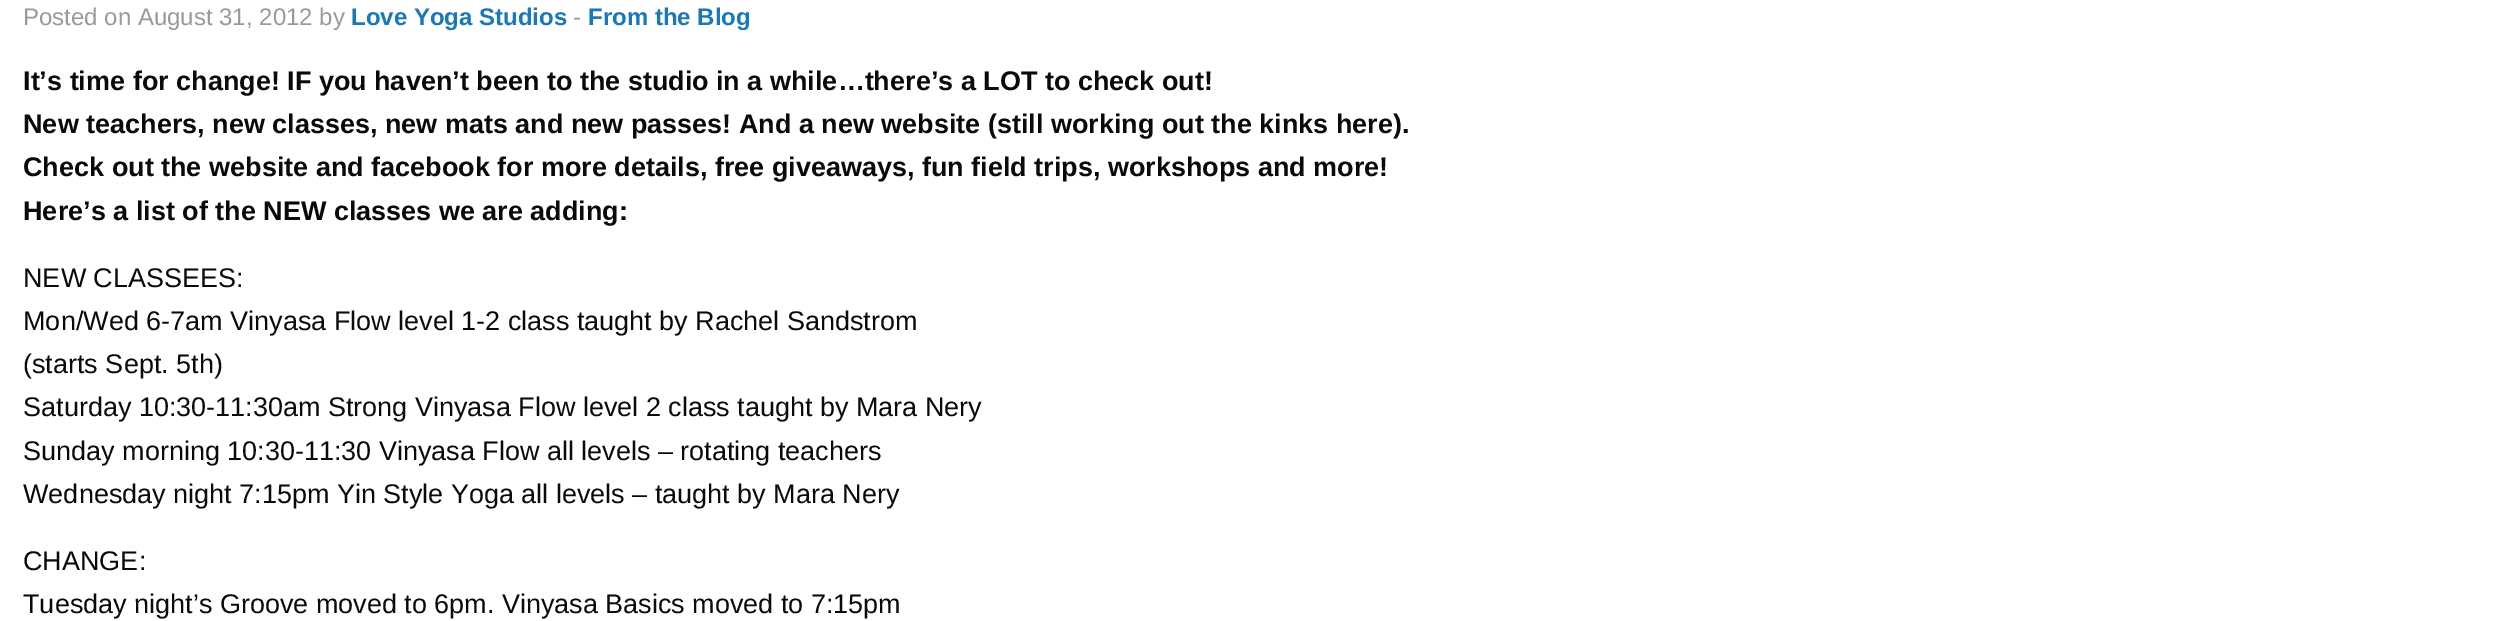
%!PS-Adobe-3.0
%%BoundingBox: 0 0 2506 621
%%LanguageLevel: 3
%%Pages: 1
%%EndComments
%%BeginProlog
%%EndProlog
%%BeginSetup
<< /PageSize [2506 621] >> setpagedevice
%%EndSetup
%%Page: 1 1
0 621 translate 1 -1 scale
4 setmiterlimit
1 setgray
0 0 2506 621 rectfill
/LiberationSans-Regular [24 0 0 -24 0 0] selectfont
0.6 setgray
23 25 moveto (Posted on August 31, 2012 by) show
/LiberationSans-Bold [24 0 0 -24 0 0] selectfont
0.09 0.475 0.729 setrgbcolor
351 25 moveto (Love Yoga Studios) show
/LiberationSans-Regular [24 0 0 -24 0 0] selectfont
0.6 setgray
573 25 moveto (-) show
/LiberationSans-Bold [24 0 0 -24 0 0] selectfont
0.09 0.475 0.729 setrgbcolor
588 25 moveto (From the Blog) show
/LiberationSans-Bold [27 0 0 -27 0 0] selectfont
0.039 setgray
23 90 moveto (It’s time for change! IF you haven’t been to the studio in a while…there’s a LOT to check out!) show
23 133 moveto (New teachers, new classes, new mats and new passes! And a new website \(still working out the kinks here\).) show
23 176 moveto (Check out the website and facebook for more details, free giveaways, fun field trips, workshops and more!) show
23 220 moveto (Here’s a list of the NEW classes we are adding:) show
/LiberationSans-Regular [27 0 0 -27 0 0] selectfont
23 287 moveto (NEW CLASSEES:) show
23 330 moveto (Mon/Wed 6-7am Vinyasa Flow level 1-2 class taught by Rachel Sandstrom) show
23 373 moveto (\(starts Sept. 5th\)) show
23 416 moveto (Saturday 10:30-11:30am Strong Vinyasa Flow level 2 class taught by Mara Nery) show
23 460 moveto (Sunday morning 10:30-11:30 Vinyasa Flow all levels – rotating teachers) show
23 503 moveto (Wednesday night 7:15pm Yin Style Yoga all levels – taught by Mara Nery) show
23 570 moveto (CHANGE:) show
23 613 moveto (Tuesday night’s Groove moved to 6pm. Vinyasa Basics moved to 7:15pm) show
showpage
%%EOF
